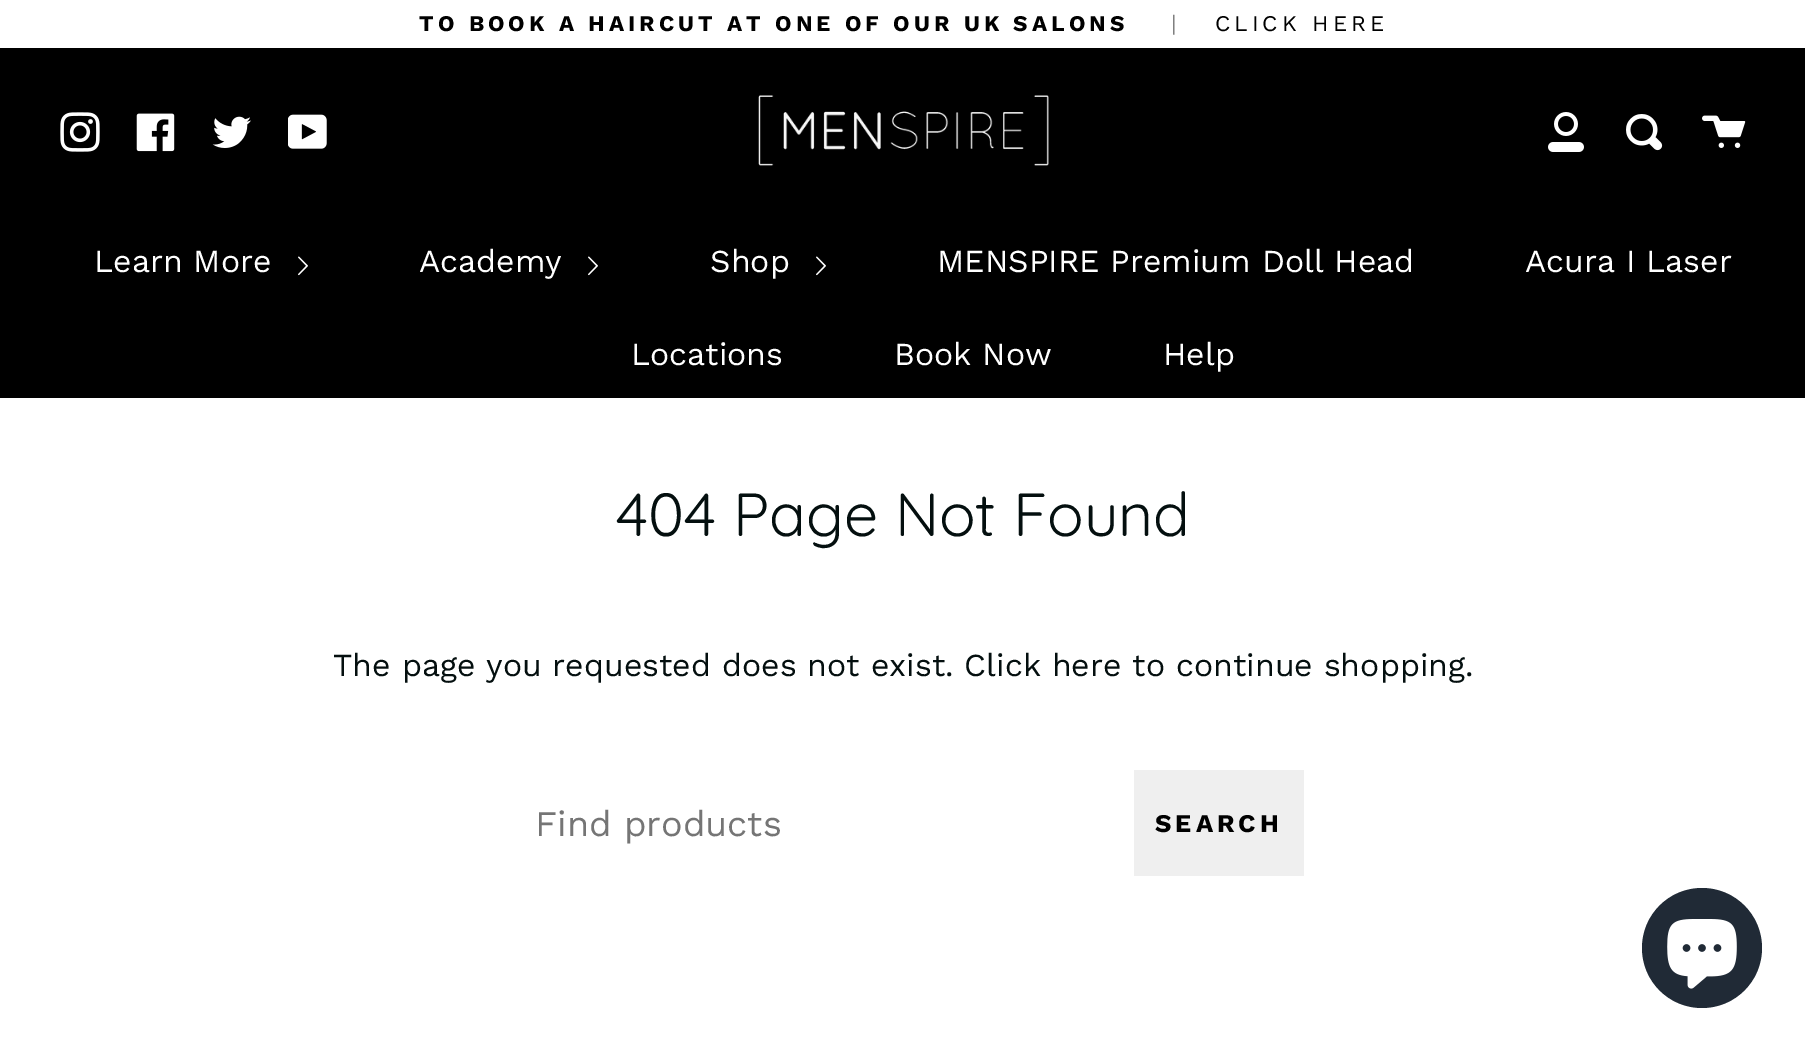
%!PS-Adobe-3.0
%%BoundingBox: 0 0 1805 1050
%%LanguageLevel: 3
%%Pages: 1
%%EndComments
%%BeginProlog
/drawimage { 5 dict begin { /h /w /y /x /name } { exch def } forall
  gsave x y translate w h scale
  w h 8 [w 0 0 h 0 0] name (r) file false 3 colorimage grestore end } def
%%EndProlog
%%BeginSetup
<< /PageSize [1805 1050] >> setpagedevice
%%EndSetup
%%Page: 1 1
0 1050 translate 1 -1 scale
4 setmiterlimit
1 setgray
0 0 1805 1050 rectfill
0 setgray
0 48 1805 350 rectfill
(images/1.raw) 60 112 40 40 drawimage
(images/2.raw) 136 113 39 39 drawimage
(images/3.raw) 212 116 39 32 drawimage
(images/4.raw) 288 114 39 35 drawimage
(images/5.raw) 758 95 291 71 drawimage
(images/6.raw) 1548 112 36 40 drawimage
(images/7.raw) 1626 114 37 37 drawimage
(images/8.raw) 1702 115 44 33 drawimage
(images/9.raw) 298 256 10 20 drawimage
(images/9.raw) 588 256 10 20 drawimage
(images/9.raw) 816 256 10 20 drawimage
0.937 setgray
1134 770 170 106 rectfill
0.125 0.165 0.212 setrgbcolor
newpath 1702 948 60 0 360 arc closepath fill
(images/10.raw) 1667 919 70 70 drawimage
/WorkSans-Bold [22.4 0 0 -22.4 0 0] selectfont
0 setgray
419 31 moveto 4 0 (TO BOOK A HAIRCUT AT ONE OF OUR UK SALONS) ashow
/WorkSans-Regular [22.4 0 0 -22.4 0 0] selectfont
0.502 setgray
1171 31 moveto 4 0 (|) ashow
0 setgray
1215 31 moveto 4 0 (CLICK HERE) ashow
/WorkSans-Regular [32 0 0 -32 0 0] selectfont
1 setgray
94 272 moveto (Learn More) show
419 272 moveto (Academy) show
710 272 moveto (Shop) show
937 272 moveto (MENSPIRE Premium Doll Head) show
1525 272 moveto (Acura I Laser) show
631 365 moveto (Locations) show
894 365 moveto (Book Now) show
1163 365 moveto (Help) show
/Quicksand-Regular [60.75 0 0 -60.75 0 0] selectfont
0.016 0.059 0.059 setrgbcolor
616 536 moveto (404 Page Not Found) show
/WorkSans-Regular [32 0 0 -32 0 0] selectfont
333 676 moveto (The page you requested does not exist. Click here to continue shopping.) show
/WorkSans-Regular [36 0 0 -36 0 0] selectfont
0.459 setgray
535 836 moveto (Find products) show
/WorkSans-Bold [25.5 0 0 -25.5 0 0] selectfont
0 setgray
1155 832 moveto 4 0 (SEARCH) ashow
showpage
%%EOF
